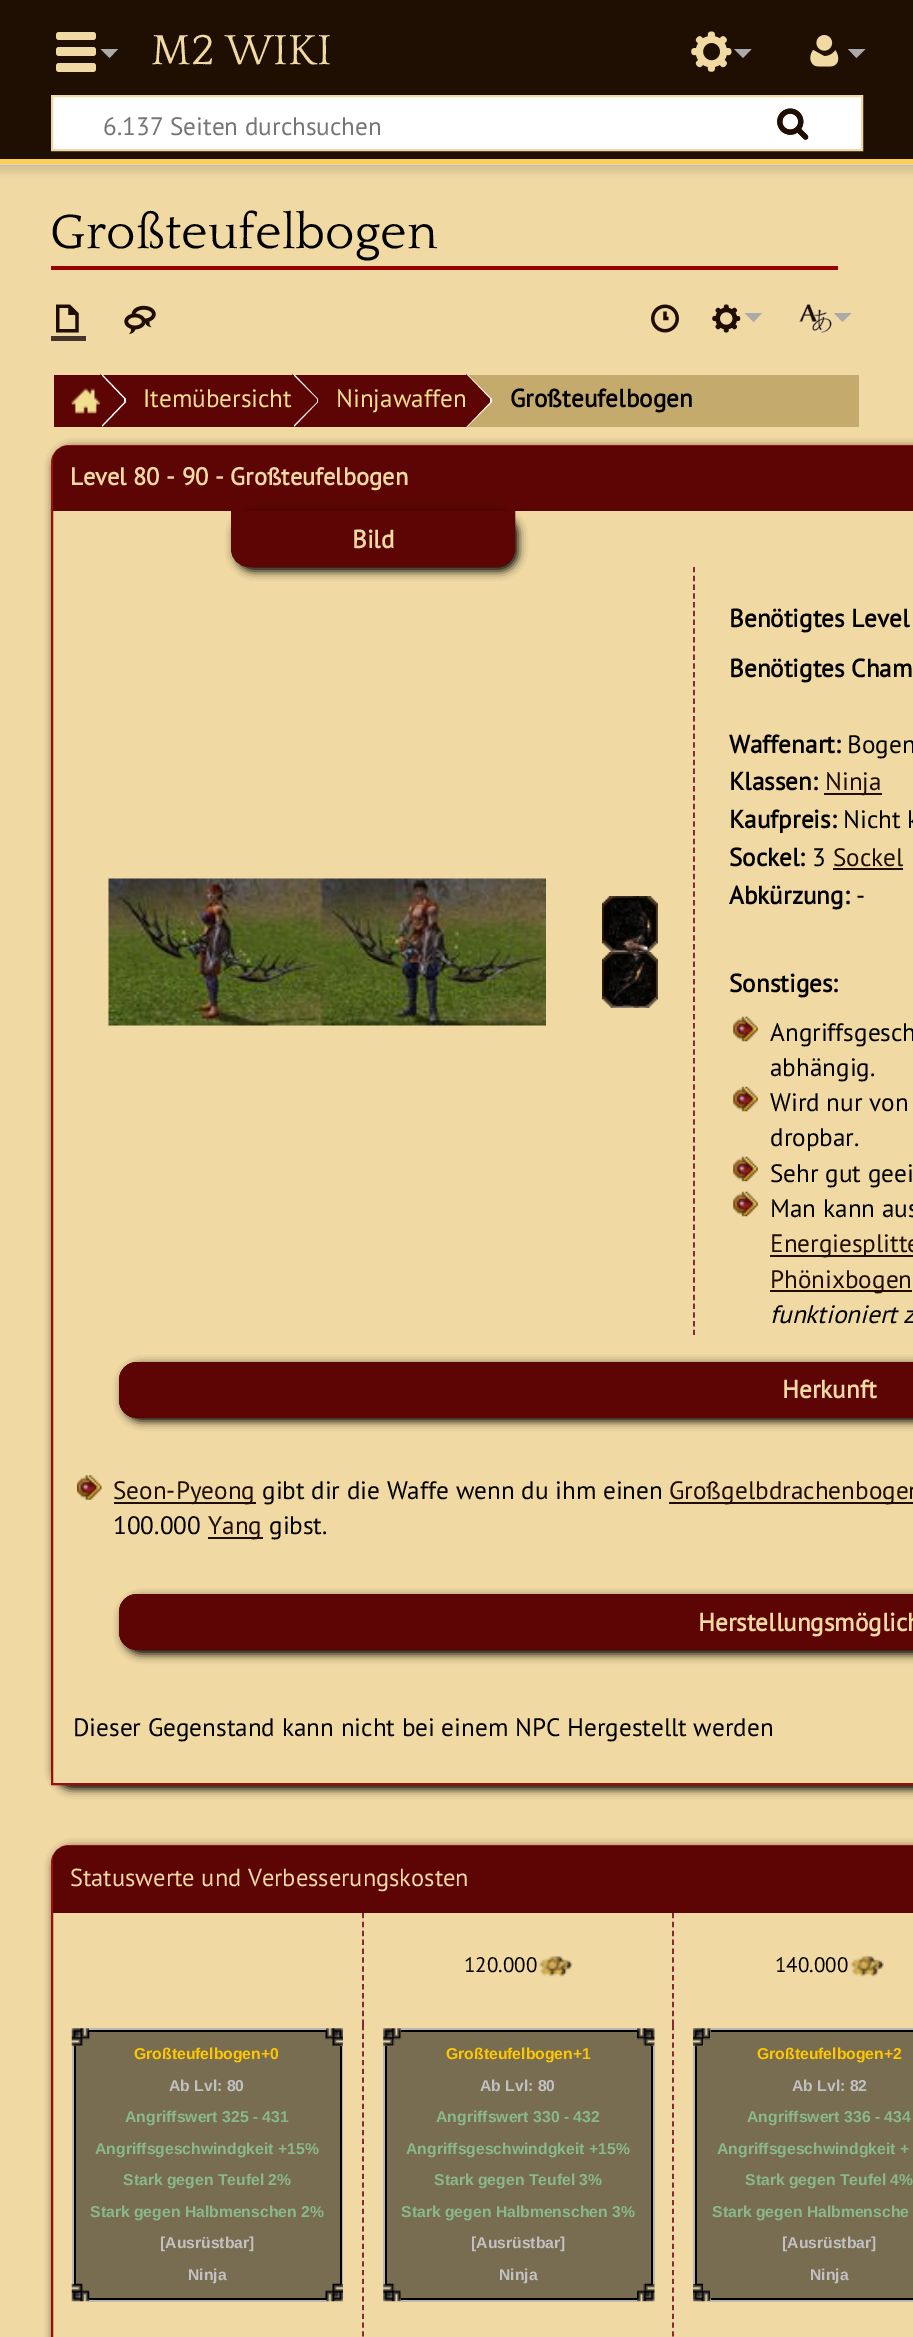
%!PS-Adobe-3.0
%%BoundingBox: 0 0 913 2337
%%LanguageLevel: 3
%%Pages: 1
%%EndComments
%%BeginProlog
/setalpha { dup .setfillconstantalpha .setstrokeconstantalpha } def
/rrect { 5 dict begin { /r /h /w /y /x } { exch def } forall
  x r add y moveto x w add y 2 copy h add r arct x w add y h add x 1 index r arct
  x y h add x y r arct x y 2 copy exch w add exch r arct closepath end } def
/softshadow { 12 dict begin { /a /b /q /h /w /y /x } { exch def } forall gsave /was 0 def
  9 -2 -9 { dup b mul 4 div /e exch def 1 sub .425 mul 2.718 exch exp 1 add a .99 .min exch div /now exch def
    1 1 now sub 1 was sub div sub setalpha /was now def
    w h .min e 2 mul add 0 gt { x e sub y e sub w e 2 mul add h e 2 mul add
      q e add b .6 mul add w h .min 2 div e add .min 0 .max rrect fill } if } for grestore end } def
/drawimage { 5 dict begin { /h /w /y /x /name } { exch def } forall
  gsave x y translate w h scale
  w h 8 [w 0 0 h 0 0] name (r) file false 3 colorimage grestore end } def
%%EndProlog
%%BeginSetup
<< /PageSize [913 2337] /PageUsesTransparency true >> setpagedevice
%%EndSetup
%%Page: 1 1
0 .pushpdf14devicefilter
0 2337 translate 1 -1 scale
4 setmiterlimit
0.122 0.055 0.008 setrgbcolor
0 0 913 2337 rectfill
(images/1.raw) 810 35 29 32 drawimage
0.667 setgray
newpath 865.5 49 moveto 856.5 58 lineto 848 49 lineto closepath fill
1 setgray
newpath 52 96 moveto 862 96 lineto 862 150 lineto 52 150 lineto closepath gsave fill grestore
0.941 0.851 0.635 setrgbcolor
2 setlinewidth
stroke
(images/2.raw) 777 108 32 32 drawimage
(images/3.raw) 777 108 32 32 drawimage
1 setgray
0 164 913 1 rectfill
0.941 0.851 0.635 setrgbcolor
0 165 913 2172 rectfill
0 setgray
0 159 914 5 0 2 0.2 softshadow
-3 161 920 12 0 2.5 0.07 softshadow
0.996 0.808 0.345 setrgbcolor
0 159 913 5 rectfill
0.941 0.851 0.635 setrgbcolor
56 63 40 9 3 rrect fill
56 47 40 9 3 rrect fill
56 32 40 8 3 rrect fill
0.667 setgray
newpath 118 49 moveto 109.5 58 lineto 100.5 49 lineto closepath fill
(images/4.raw) 691 31 41 41 drawimage
newpath 751.5 49 moveto 743 58 lineto 734 49 lineto closepath fill
0.6 0 0 setrgbcolor
51 266 787 4 rectfill
0.271 0.204 0.173 setrgbcolor
51 336 35 5 rectfill
(images/5.raw) 56 304 23 29 drawimage
(images/6.raw) 124 305 32 30 drawimage
(images/7.raw) 651 304 28 29 drawimage
(images/8.raw) 712 304 29 29 drawimage
0.667 setgray
newpath 762 313 moveto 753.5 322 lineto 744.5 313 lineto closepath fill
(images/9.raw) 799 304 33 29 drawimage
newpath 851.5 313 moveto 842.5 322 lineto 834 313 lineto closepath fill
0.769 0.667 0.424 setrgbcolor
466 375 393 52 rectfill
0.365 0.02 0.02 setrgbcolor
54 375 412 52 rectfill
1 setgray
newpath 102 427 moveto 102 374 lineto 126 399 lineto 126 402 lineto closepath fill
0.365 0.02 0.02 setrgbcolor
newpath 100 427 moveto 100 374 lineto 124 399 lineto 124 402 lineto closepath fill
(images/10.raw) 71 388 29 26 drawimage
1 setgray
newpath 294 427 moveto 294 374 lineto 318 399 lineto 318 402 lineto closepath fill
0.365 0.02 0.02 setrgbcolor
newpath 292 427 moveto 292 374 lineto 317 399 lineto 317 402 lineto closepath fill
1 setgray
newpath 467 427 moveto 467 374 lineto 492 399 lineto 492 402 lineto closepath fill
0.365 0.02 0.02 setrgbcolor
newpath 466 427 moveto 466 374 lineto 490 399 lineto 490 402 lineto closepath fill
gsave
newpath 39 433 moveto 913 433 lineto 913 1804 lineto 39 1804 lineto closepath 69 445 moveto 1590 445 lineto 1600 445 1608 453 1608 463 curveto 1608 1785 lineto 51 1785 lineto 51 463 lineto 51 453 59 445 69 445 curveto closepath eoclip newpath
0 setgray
54 448 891 1341 18 4.5 1 softshadow
grestore
0.592 0.063 0.051 setrgbcolor
newpath 69 446 moveto 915 446 lineto 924.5 446 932 453.5 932 463 curveto 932 1784 lineto 52 1784 lineto 52 463 lineto 52 453.5 59.5 446 69 446 curveto closepath stroke
0.365 0.02 0.02 setrgbcolor
newpath 67 446 moveto 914 446 lineto 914 511 lineto 53 511 lineto 53 460 lineto 53 452.5 59.5 446 67 446 curveto closepath fill
0 setgray
235 515 283 56 18 4.5 1 softshadow
0.365 0.02 0.02 setrgbcolor
newpath 232 512 moveto 514 512 lineto 514 549 lineto 514 558.5 506.5 566 497 566 curveto 249 566 lineto 239.5 566 232 558.5 232 549 curveto closepath gsave fill grestore
stroke
(images/11.raw) 108 878 438 148 drawimage
0.533 0.157 0.227 setrgbcolor
1.8 setlinewidth
[5.25 3.52] 0 setdash
newpath 694 567 moveto 694 1335 lineto stroke
(images/12.raw) 602 896 56 56 drawimage
(images/12.raw) 602 952 56 56 drawimage
(images/13.raw) 609 900 43 105 drawimage
0.118 0.051 0 setrgbcolor
824 793 58 2 rectfill
833 868 70 2 rectfill
(images/14.raw) 733 1016 25 26 drawimage
(images/14.raw) 733 1086 25 26 drawimage
(images/14.raw) 733 1156 25 26 drawimage
(images/14.raw) 733 1191 25 26 drawimage
770 1255 143 2 rectfill
770 1290 142 2 rectfill
0 setgray
123 1365 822 56 18 4.5 1 softshadow
0.365 0.02 0.02 setrgbcolor
newpath 137 1362 moveto 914 1362 lineto 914 1418 lineto 137 1418 lineto 127 1418 119 1410 119 1400 curveto 119 1380 lineto 119 1370 127 1362 137 1362 curveto closepath fill
2 setlinewidth
[] 0 setdash
120 1363 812 54 17 rrect stroke
(images/15.raw) 77 1475 25 25 drawimage
0.118 0.051 0 setrgbcolor
114 1502 142 2 rectfill
669 1502 244 2 rectfill
208 1537 55 2 rectfill
0 setgray
123 1598 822 56 18 4.5 1 softshadow
0.365 0.02 0.02 setrgbcolor
newpath 137 1594 moveto 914 1594 lineto 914 1650 lineto 137 1650 lineto 127 1650 119 1642 119 1632 curveto 119 1612 lineto 119 1602 127 1594 137 1594 curveto closepath fill
120 1595 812 54 17 rrect stroke
gsave
newpath 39 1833 moveto 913 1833 lineto 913 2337 lineto 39 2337 lineto closepath 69 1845 moveto 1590 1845 lineto 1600 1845 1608 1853 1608 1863 curveto 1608 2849 lineto 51 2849 lineto 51 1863 lineto 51 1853 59 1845 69 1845 curveto closepath eoclip newpath
0 setgray
54 1848 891 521 18 4.5 1 softshadow
grestore
0.592 0.063 0.051 setrgbcolor
newpath 69 1846 moveto 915 1846 lineto 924.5 1846 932 1853.5 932 1863 curveto 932 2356 lineto 52 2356 lineto 52 1863 lineto 52 1853.5 59.5 1846 69 1846 curveto closepath stroke
0.365 0.02 0.02 setrgbcolor
newpath 67 1846 moveto 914 1846 lineto 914 1913 lineto 53 1913 lineto 53 1860 lineto 53 1852.5 59.5 1846 67 1846 curveto closepath fill
0.533 0.157 0.227 setrgbcolor
1.8 setlinewidth
[5.25 3.64] 0 setdash
newpath 363 1913 moveto 363 2025 lineto stroke
newpath 673 1913 moveto 673 2025 lineto stroke
(images/16.raw) 539 1955 34 22 drawimage
(images/17.raw) 850 1955 34 22 drawimage
[5.25 3.5] 0 setdash
newpath 363 2025 moveto 363 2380 lineto stroke
(images/18.raw) 71 2028 19 18 drawimage
(images/19.raw) 325 2028 18 18 drawimage
0.725 0.714 0.71 setrgbcolor
89 2028 237 2 rectfill
0 setgray
89 2030 237 2 rectfill
0.5 setalpha
89 2032 237 7 rectfill
1 setalpha
(images/20.raw) 71 2283 19 19 drawimage
(images/21.raw) 325 2283 18 19 drawimage
0.5 setalpha
89 2291 237 7 rectfill
1 setalpha
89 2298 237 2 rectfill
0.725 0.714 0.71 setrgbcolor
89 2300 237 2 rectfill
72 2046 2 238 rectfill
0 setgray
74 2046 2 238 rectfill
0.5 setalpha
76 2046 6 238 rectfill
333 2046 7 238 rectfill
1 setalpha
340 2046 2 238 rectfill
0.725 0.714 0.71 setrgbcolor
342 2046 1 238 rectfill
0.5 setalpha
0 setgray
82 2039 251 252 rectfill
1 setalpha
0.533 0.157 0.227 setrgbcolor
newpath 673 2025 moveto 673 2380 lineto stroke
(images/22.raw) 383 2028 18 18 drawimage
0.725 0.714 0.71 setrgbcolor
401 2028 236 2 rectfill
0 setgray
401 2030 236 2 rectfill
0.471 0.427 0.318 setrgbcolor
401 2032 236 7 rectfill
401 2291 236 7 rectfill
0 setgray
401 2298 236 2 rectfill
0.725 0.714 0.71 setrgbcolor
401 2300 236 2 rectfill
(images/23.raw) 637 2028 18 18 drawimage
(images/24.raw) 383 2283 18 19 drawimage
383 2046 2 238 rectfill
0 setgray
385 2046 2 238 rectfill
0.5 setalpha
387 2046 7 238 rectfill
1 setalpha
(images/25.raw) 637 2283 18 19 drawimage
0.5 setalpha
644 2046 7 238 rectfill
1 setalpha
651 2046 2 238 rectfill
0.725 0.714 0.71 setrgbcolor
653 2046 2 238 rectfill
0.5 setalpha
0 setgray
394 2039 250 252 rectfill
1 setalpha
(images/26.raw) 693 2028 18 18 drawimage
0.725 0.714 0.71 setrgbcolor
711 2028 202 2 rectfill
0 setgray
711 2030 202 2 rectfill
0.471 0.427 0.318 setrgbcolor
711 2032 202 7 rectfill
711 2291 202 7 rectfill
0 setgray
711 2298 202 2 rectfill
0.725 0.714 0.71 setrgbcolor
711 2300 202 2 rectfill
(images/27.raw) 693 2283 18 19 drawimage
693 2046 2 238 rectfill
0 setgray
695 2046 2 238 rectfill
0.5 setalpha
697 2046 7 238 rectfill
704 2039 209 252 rectfill
/Quattrocento-Regular [44 0 0 -44 0 0] selectfont
1 setalpha
0.941 0.851 0.635 setrgbcolor
151 64 moveto (M2 WIKI) show
/PTSans-Regular [25.2 0 0 -25.2 0 0] selectfont
0.459 setgray
103 135 moveto (6.137 Seiten durchsuchen) show
/Quattrocento-Regular [50.5 0 0 -50.5 0 0] selectfont
0 setgray
50 248 moveto (Großteufelbogen) show
/PTSans-Regular [25.2 0 0 -25.2 0 0] selectfont
0.945 0.871 0.557 setrgbcolor
143 407 moveto (Itemübersicht) show
336 407 moveto (Ninjawaffen) show
/PTSans-Bold [25.2 0 0 -25.2 0 0] selectfont
0 setgray
510 407 moveto (Großteufelbogen) show
/PTSans-Bold [24.5 0 0 -24.5 0 0] selectfont
0.941 0.851 0.635 setrgbcolor
70 485 moveto (Level 80 - 90 - Großteufelbogen) show
/PTSans-Bold [25.2 0 0 -25.2 0 0] selectfont
352 548 moveto (Bild) show
0 setgray
729 627 moveto (Benötigtes Level) show
729 677 moveto (Benötigtes Cham) show
729 753 moveto (Waffenart:) show
/PTSans-Regular [25.2 0 0 -25.2 0 0] selectfont
847 753 moveto (Bogen) show
/PTSans-Bold [25.2 0 0 -25.2 0 0] selectfont
729 790 moveto (Klassen:) show
/PTSans-Regular [25.2 0 0 -25.2 0 0] selectfont
0.118 0.051 0 setrgbcolor
825 790 moveto (Ninja) show
/PTSans-Bold [25.2 0 0 -25.2 0 0] selectfont
0 setgray
729 828 moveto (Kaufpreis:) show
/PTSans-Regular [25.2 0 0 -25.2 0 0] selectfont
843 828 moveto (Nicht k) show
/PTSans-Bold [25.2 0 0 -25.2 0 0] selectfont
729 866 moveto (Sockel:) show
/PTSans-Regular [25.2 0 0 -25.2 0 0] selectfont
812 866 moveto (3) show
0.118 0.051 0 setrgbcolor
833 866 moveto (Sockel) show
/PTSans-Bold [25.2 0 0 -25.2 0 0] selectfont
0 setgray
729 904 moveto (Abkürzung:) show
/PTSans-Regular [25.2 0 0 -25.2 0 0] selectfont
856 904 moveto (-) show
/PTSans-Bold [25.2 0 0 -25.2 0 0] selectfont
729 992 moveto (Sonstiges:) show
/PTSans-Regular [25.2 0 0 -25.2 0 0] selectfont
770 1041 moveto (Angriffsgesch) show
770 1076 moveto (abhängig.) show
770 1111 moveto (Wird nur von) show
770 1146 moveto (dropbar.) show
770 1182 moveto (Sehr gut geei) show
770 1217 moveto (Man kann aus) show
0.118 0.051 0 setrgbcolor
770 1252 moveto (Energiesplitte) show
770 1288 moveto (Phönixbogen) show
/PTSans-Italic [25.2 0 0 -25.2 0 0] selectfont
0 setgray
770 1323 moveto (funktioniert z) show
/PTSans-Bold [25.2 0 0 -25.2 0 0] selectfont
0.941 0.851 0.635 setrgbcolor
782 1398 moveto (Herkunft) show
/PTSans-Regular [25.2 0 0 -25.2 0 0] selectfont
0.118 0.051 0 setrgbcolor
113 1499 moveto (Seon-Pyeong) show
0 setgray
262 1499 moveto (gibt dir die Waffe wenn du ihm einen) show
0.118 0.051 0 setrgbcolor
669 1499 moveto (Großgelbdrachenbogen) show
0 setgray
113 1534 moveto (100.000) show
0.118 0.051 0 setrgbcolor
208 1534 moveto (Yang) show
0 setgray
269 1534 moveto (gibst.) show
/PTSans-Bold [25.2 0 0 -25.2 0 0] selectfont
0.941 0.851 0.635 setrgbcolor
698 1631 moveto (Herstellungsmöglich) show
/PTSans-Regular [25.2 0 0 -25.2 0 0] selectfont
0 setgray
73 1736 moveto (Dieser Gegenstand kann nicht bei einem NPC Hergestellt werden) show
/PTSans-Regular [24.5 0 0 -24.5 0 0] selectfont
0.941 0.851 0.635 setrgbcolor
70 1886 moveto (Statuswerte und Verbesserungskosten) show
/PTSans-Regular [21 0 0 -21 0 0] selectfont
0 setgray
464 1972 moveto (120.000) show
775 1972 moveto (140.000) show
/LiberationSans-Bold [15.75 0 0 -15.75 0 0] selectfont
1 0.78 0 setrgbcolor
134 2059 moveto (Großteufelbogen+0) show
0.757 setgray
169 2091 moveto (Ab Lvl: 80) show
0.537 0.722 0.553 setrgbcolor
125 2122 moveto (Angriffswert 325 - 431) show
95 2154 moveto (Angriffsgeschwindgkeit +15%) show
123 2185 moveto (Stark gegen Teufel 2%) show
90 2217 moveto (Stark gegen Halbmenschen 2%) show
0.757 setgray
160 2248 moveto ([Ausrüstbar]) show
188 2280 moveto (Ninja) show
1 0.78 0 setrgbcolor
446 2059 moveto (Großteufelbogen+1) show
0.757 setgray
480 2091 moveto (Ab Lvl: 80) show
0.537 0.722 0.553 setrgbcolor
436 2122 moveto (Angriffswert 330 - 432) show
406 2154 moveto (Angriffsgeschwindgkeit +15%) show
434 2185 moveto (Stark gegen Teufel 3%) show
401 2217 moveto (Stark gegen Halbmenschen 3%) show
0.757 setgray
471 2248 moveto ([Ausrüstbar]) show
499 2280 moveto (Ninja) show
1 0.78 0 setrgbcolor
757 2059 moveto (Großteufelbogen+2) show
0.757 setgray
792 2091 moveto (Ab Lvl: 82) show
0.537 0.722 0.553 setrgbcolor
747 2122 moveto (Angriffswert 336 - 434) show
717 2154 moveto (Angriffsgeschwindgkeit +) show
745 2185 moveto (Stark gegen Teufel 4%) show
712 2217 moveto (Stark gegen Halbmensche) show
0.757 setgray
782 2248 moveto ([Ausrüstbar]) show
810 2280 moveto (Ninja) show
.poppdf14devicefilter showpage
%%EOF
